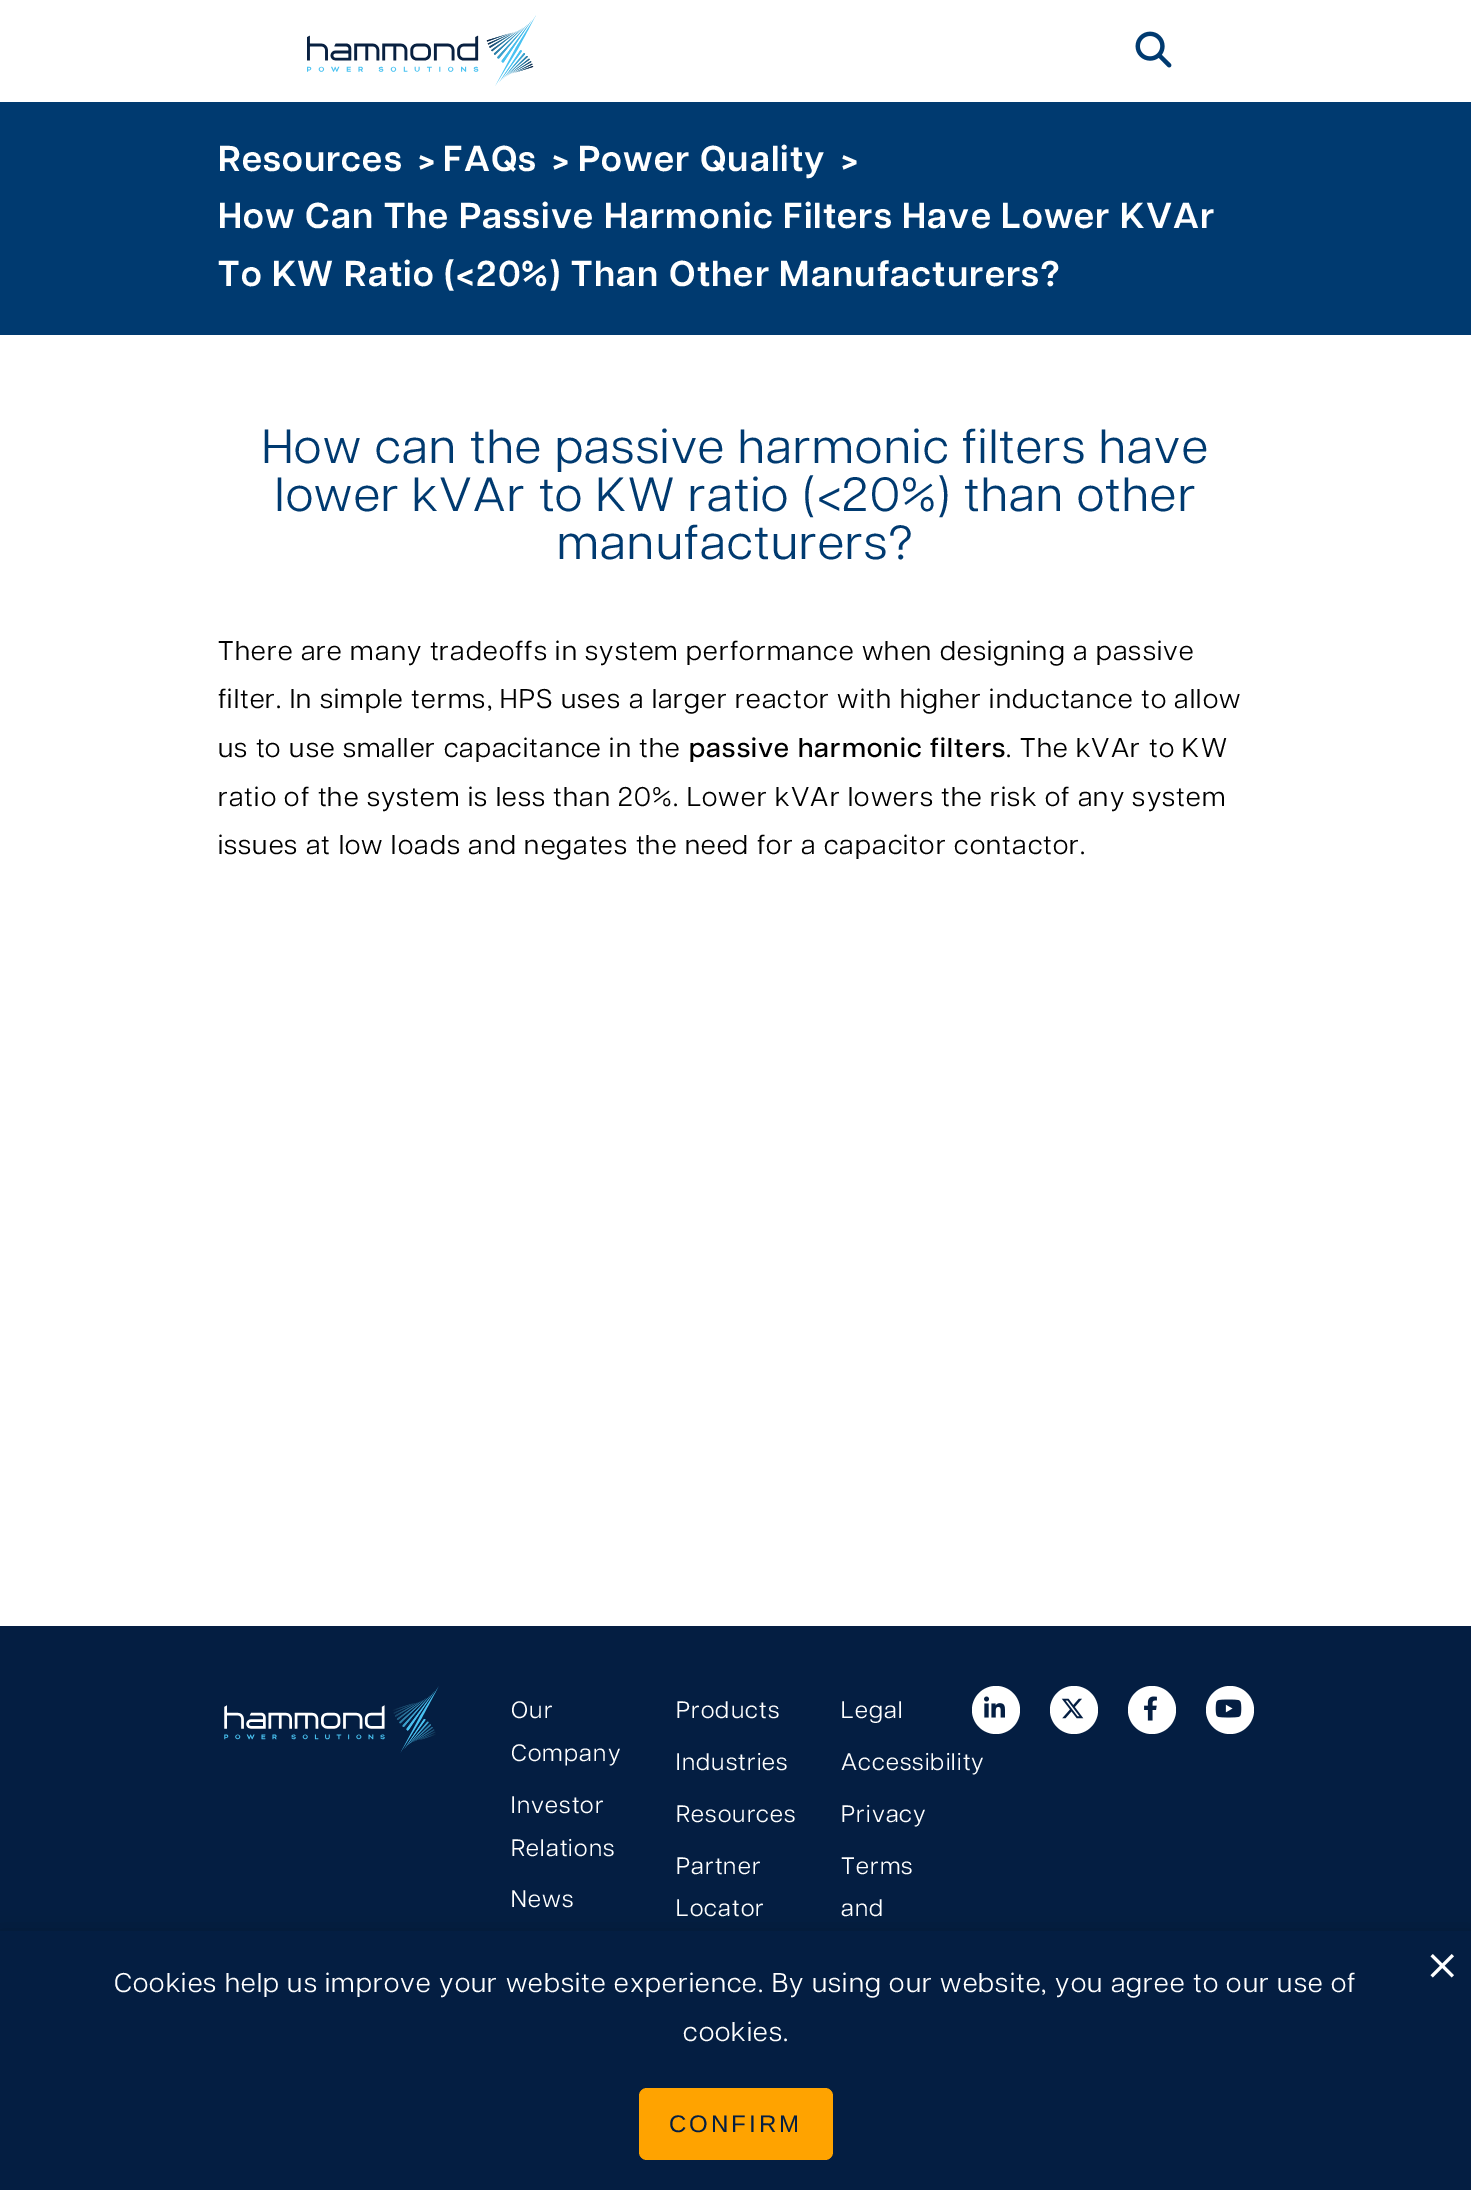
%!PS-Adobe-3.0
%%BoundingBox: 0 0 1471 2190
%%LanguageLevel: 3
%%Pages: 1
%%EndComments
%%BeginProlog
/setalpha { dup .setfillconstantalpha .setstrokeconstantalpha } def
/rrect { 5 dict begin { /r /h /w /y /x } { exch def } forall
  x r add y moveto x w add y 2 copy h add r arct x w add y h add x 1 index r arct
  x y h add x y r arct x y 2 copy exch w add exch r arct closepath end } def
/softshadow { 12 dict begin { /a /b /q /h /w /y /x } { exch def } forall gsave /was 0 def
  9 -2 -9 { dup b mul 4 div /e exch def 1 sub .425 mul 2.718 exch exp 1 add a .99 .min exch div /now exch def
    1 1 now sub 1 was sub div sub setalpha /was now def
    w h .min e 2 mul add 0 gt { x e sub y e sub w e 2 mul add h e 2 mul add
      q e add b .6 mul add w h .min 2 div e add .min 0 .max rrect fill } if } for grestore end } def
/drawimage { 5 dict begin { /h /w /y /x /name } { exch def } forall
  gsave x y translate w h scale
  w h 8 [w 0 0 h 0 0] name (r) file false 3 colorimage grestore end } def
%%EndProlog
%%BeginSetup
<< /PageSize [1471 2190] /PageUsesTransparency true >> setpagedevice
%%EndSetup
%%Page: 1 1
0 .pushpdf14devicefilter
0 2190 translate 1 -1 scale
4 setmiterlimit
1 setgray
0 0 1471 2190 rectfill
(images/1.raw) 307 15 229 71 drawimage
(images/2.raw) 1135 31 37 37 drawimage
0 0.227 0.439 setrgbcolor
0 102 1471 233 rectfill
0.016 0.118 0.259 setrgbcolor
0 1626 1471 305 rectfill
(images/3.raw) 224 1686 215 67 drawimage
1 setgray
newpath 996 1710 24 0 360 arc closepath fill
(images/4.raw) 984 1696 21 22 drawimage
newpath 1074 1710 24 0 360 arc closepath fill
(images/5.raw) 1061 1698 23 21 drawimage
newpath 1152 1710 24 0 360 arc closepath fill
(images/6.raw) 1144 1696 13 25 drawimage
newpath 1230 1710 24 0 360 arc closepath fill
(images/7.raw) 1215 1699 27 19 drawimage
0 setgray
0 1937 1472 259 0 12 0.3 softshadow
0.016 0.118 0.259 setrgbcolor
0 1931 1471 259 rectfill
(images/8.raw) 1430 1954 24 24 drawimage
1 0.639 0 setrgbcolor
639 2088 194 72 8 rrect fill
/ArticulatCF-SemiBold [35.9 0 0 -35.9 0 0] selectfont
1 setgray
218 171 moveto 1.2 0 (Resources) ashow
/UbuntuMono-Bold [30 0 0 -30 0 0] selectfont
418 171 moveto 1.2 0 (>) ashow
/ArticulatCF-SemiBold [35.9 0 0 -35.9 0 0] selectfont
443 171 moveto 1.2 0 (FAQs) ashow
/UbuntuMono-Bold [30 0 0 -30 0 0] selectfont
552 171 moveto 1.2 0 (>) ashow
/ArticulatCF-SemiBold [35.9 0 0 -35.9 0 0] selectfont
578 171 moveto 1.2 0 (Power Quality) ashow
/UbuntuMono-Bold [30 0 0 -30 0 0] selectfont
841 171 moveto 1.2 0 (>) ashow
/ArticulatCF-SemiBold [35.9 0 0 -35.9 0 0] selectfont
218 228 moveto 1.2 0 (How Can The Passive Harmonic Filters Have Lower KVAr) ashow
218 286 moveto 1.2 0 (To KW Ratio \(<20%\) Than Other Manufacturers?) ashow
/ArticulatCF-Regular [48 0 0 -48 0 0] selectfont
0 0.227 0.439 setrgbcolor
262 463 moveto 1.5 0 (How can the passive harmonic filters have) ashow
275 511 moveto 1.5 0 (lower kVAr to KW ratio \(<20%\) than other) ashow
557 559 moveto 1.5 0 (manufacturers?) ashow
/ArticulatCF-Regular [27 0 0 -27 0 0] selectfont
0 setgray
218 660 moveto 1.2 0 (There are many tradeoffs in system performance when designing a passive) ashow
218 708 moveto 1.2 0 (filter. In simple terms, HPS uses a larger reactor with higher inductance to allow) ashow
218 757 moveto 1.2 0 (us to use smaller capacitance in the) ashow
/ArticulatCF-Medium [27 0 0 -27 0 0] selectfont
689 757 moveto 1.2 0 (passive harmonic filters) ashow
/ArticulatCF-Regular [27 0 0 -27 0 0] selectfont
1006 757 moveto 1.2 0 (. The kVAr to KW) ashow
218 806 moveto 1.2 0 (ratio of the system is less than 20%. Lower kVAr lowers the risk of any system) ashow
218 854 moveto 1.2 0 (issues at low loads and negates the need for a capacitor contactor.) ashow
/ArticulatCF-Regular [23.75 0 0 -23.75 0 0] selectfont
1 setgray
511 1718 moveto 1.2 0 (Our) ashow
511 1761 moveto 1.2 0 (Company) ashow
511 1813 moveto 1.2 0 (Investor) ashow
511 1856 moveto 1.2 0 (Relations) ashow
511 1907 moveto 1.2 0 (News) ashow
676 1718 moveto 1.2 0 (Products) ashow
676 1770 moveto 1.2 0 (Industries) ashow
676 1822 moveto 1.2 0 (Resources) ashow
676 1874 moveto 1.2 0 (Partner) ashow
676 1916 moveto 1.2 0 (Locator) ashow
841 1718 moveto 1.2 0 (Legal) ashow
841 1770 moveto 1.2 0 (Accessibility) ashow
841 1822 moveto 1.2 0 (Privacy) ashow
841 1874 moveto 1.2 0 (Terms) ashow
841 1916 moveto 1.2 0 (and) ashow
/ArticulatCF-Regular [27 0 0 -27 0 0] selectfont
114 1992 moveto 1.2 0 (Cookies help us improve your website experience. By using our website, you agree to our use of) ashow
683 2041 moveto 1.2 0 (cookies.) ashow
/LiberationSans-Regular [24 0 0 -24 0 0] selectfont
0.016 0.118 0.259 setrgbcolor
669 2132 moveto 3 0 (CONFIRM) ashow
.poppdf14devicefilter showpage
%%EOF
